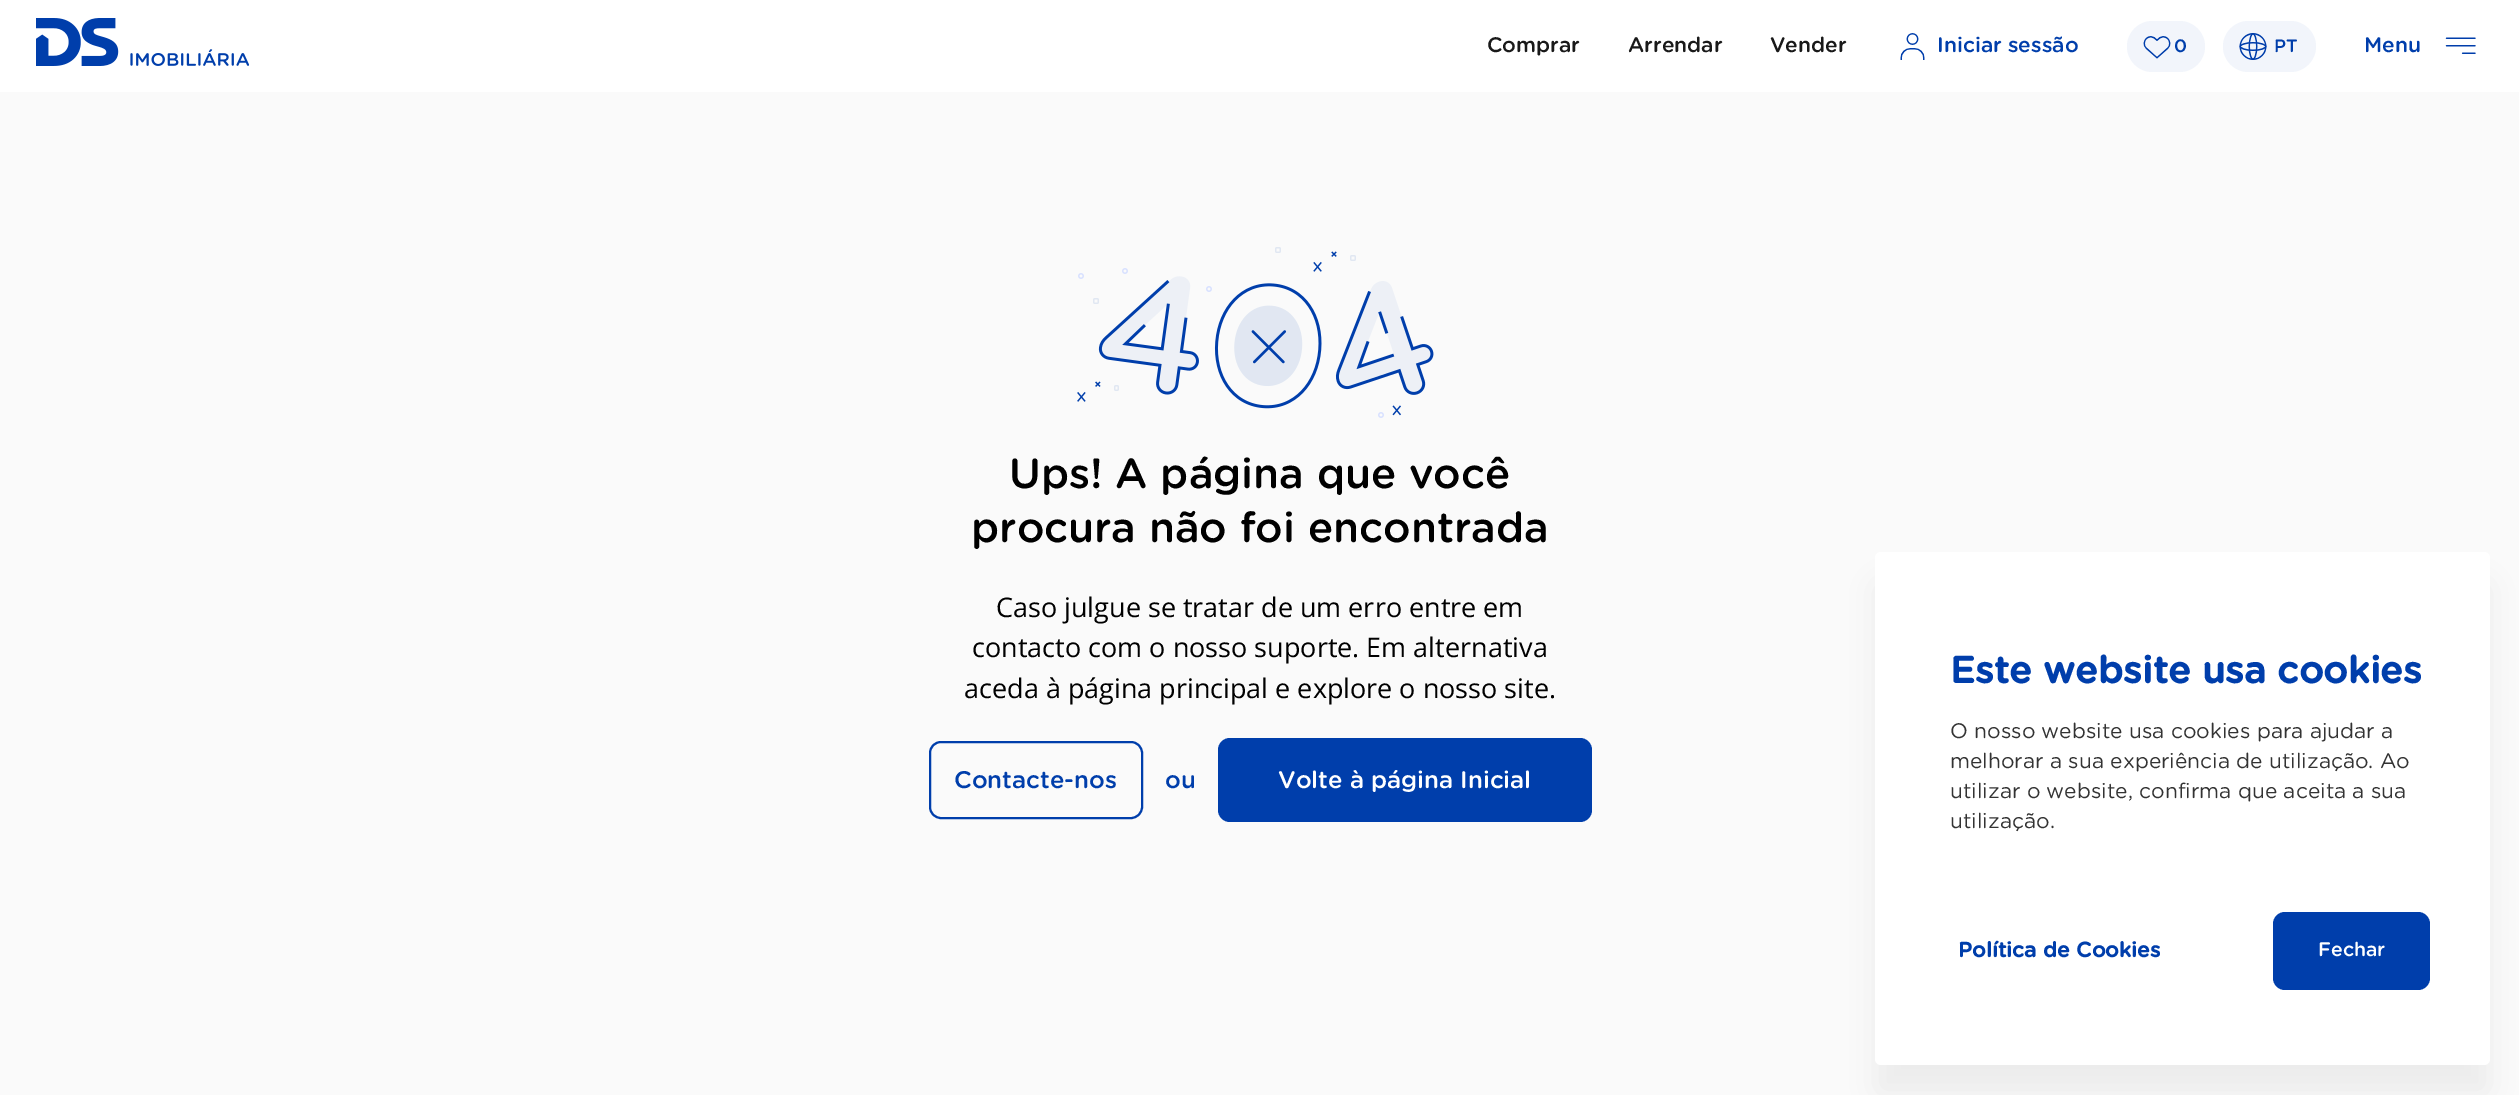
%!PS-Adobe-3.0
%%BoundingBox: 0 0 2519 1095
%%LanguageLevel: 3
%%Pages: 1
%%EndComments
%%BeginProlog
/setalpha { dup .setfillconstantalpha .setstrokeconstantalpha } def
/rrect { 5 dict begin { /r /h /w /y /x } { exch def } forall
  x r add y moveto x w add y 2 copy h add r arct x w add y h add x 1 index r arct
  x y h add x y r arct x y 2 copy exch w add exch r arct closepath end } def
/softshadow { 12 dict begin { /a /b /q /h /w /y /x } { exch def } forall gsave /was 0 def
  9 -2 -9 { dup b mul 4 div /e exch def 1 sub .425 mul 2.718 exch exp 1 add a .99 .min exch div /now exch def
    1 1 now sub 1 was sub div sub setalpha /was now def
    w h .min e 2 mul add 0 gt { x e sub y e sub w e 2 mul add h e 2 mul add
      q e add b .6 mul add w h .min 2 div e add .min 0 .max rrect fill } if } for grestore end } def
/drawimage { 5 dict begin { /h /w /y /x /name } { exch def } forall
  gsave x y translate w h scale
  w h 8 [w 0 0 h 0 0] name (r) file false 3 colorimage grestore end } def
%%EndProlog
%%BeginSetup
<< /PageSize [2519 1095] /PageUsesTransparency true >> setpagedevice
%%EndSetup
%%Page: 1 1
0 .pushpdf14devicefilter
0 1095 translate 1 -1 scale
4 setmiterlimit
1 setgray
0 0 2519 1095 rectfill
(images/1.raw) 36 18 213 48 drawimage
(images/2.raw) 1900 33 25 27 drawimage
0.949 0.961 0.984 setrgbcolor
2127 21 78 51 25.5 rrect fill
(images/3.raw) 2143 36 28 23 drawimage
2223 21 93 51 25.5 rrect fill
(images/4.raw) 2239 33 28 27 drawimage
(images/5.raw) 2445 37 31 17 drawimage
0.98 setgray
0 92 2519 1003 rectfill
(images/6.raw) 1077 247 357 171 drawimage
0 0.243 0.671 setrgbcolor
2 setlinewidth
930 742 212 76 11 rrect stroke
1218 738 374 84 12 rrect fill
0 setgray
1875 582 615 513 6 15 0.06 softshadow
1 setgray
1875 552 615 513 6 rrect fill
0 0.243 0.671 setrgbcolor
2273 912 157 78 12 rrect fill
/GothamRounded-Medium [21 0 0 -21 0 0] selectfont
0.098 setgray
1487 52 moveto (Comprar) show
1628 52 moveto (Arrendar) show
1770 52 moveto (Vender) show
0 0.243 0.671 setrgbcolor
1937 52 moveto (Iniciar sessão) show
/GothamRounded-Medium [18 0 0 -18 0 0] selectfont
2174 52 moveto (0) show
2274 52 moveto (PT) show
/GothamRounded-Medium [21 0 0 -21 0 0] selectfont
2364 52 moveto (Menu) show
/GothamRounded-Medium [42 0 0 -42 0 0] selectfont
0 setgray
1009 488 moveto (Ups! A página que você) show
971 542 moveto (procura não foi encontrada) show
/OpenSans-Regular [27 0 0 -27 0 0] selectfont
996 617 moveto (Caso julgue se tratar de um erro entre em) show
972 657 moveto (contacto com o nosso suporte. Em alternativa) show
964 698 moveto (aceda à página principal e explore o nosso site.) show
/GothamRounded-Medium [24 0 0 -24 0 0] selectfont
0 0.243 0.671 setrgbcolor
954 788 moveto (Contacte-nos) show
1165 788 moveto (ou) show
1 setgray
1278 788 moveto (Volte à página Inicial) show
/GothamRounded-Bold [37.5 0 0 -37.5 0 0] selectfont
0 0.243 0.671 setrgbcolor
1950 683 moveto (Este website usa cookies) show
/GothamRounded-Regular [21 0 0 -21 0 0] selectfont
0.2 setgray
1950 738 moveto (O nosso website usa cookies para ajudar a) show
1950 768 moveto (melhorar a sua experiência de utilização. Ao) show
1950 798 moveto (utilizar o website, confirma que aceita a sua) show
1950 828 moveto (utilização.) show
/GothamRounded-Bold [21 0 0 -21 0 0] selectfont
0 0.243 0.671 setrgbcolor
1958 957 moveto (Política de Cookies) show
/GothamRounded-Medium [19.5 0 0 -19.5 0 0] selectfont
1 setgray
2318 956 moveto (Fechar) show
.poppdf14devicefilter showpage
%%EOF
